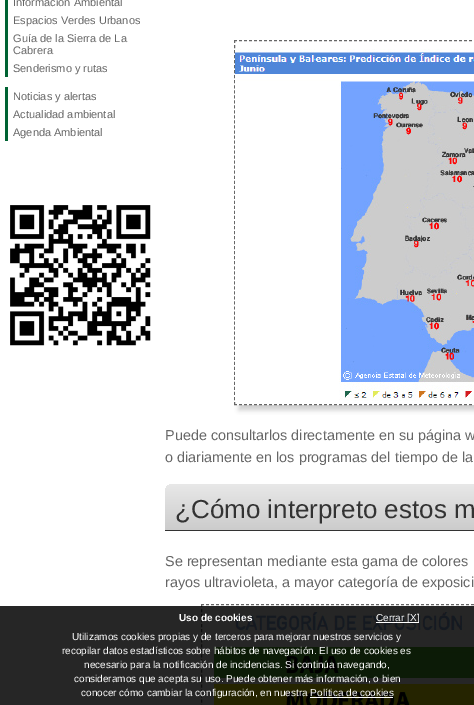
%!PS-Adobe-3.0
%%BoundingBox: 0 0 474 705
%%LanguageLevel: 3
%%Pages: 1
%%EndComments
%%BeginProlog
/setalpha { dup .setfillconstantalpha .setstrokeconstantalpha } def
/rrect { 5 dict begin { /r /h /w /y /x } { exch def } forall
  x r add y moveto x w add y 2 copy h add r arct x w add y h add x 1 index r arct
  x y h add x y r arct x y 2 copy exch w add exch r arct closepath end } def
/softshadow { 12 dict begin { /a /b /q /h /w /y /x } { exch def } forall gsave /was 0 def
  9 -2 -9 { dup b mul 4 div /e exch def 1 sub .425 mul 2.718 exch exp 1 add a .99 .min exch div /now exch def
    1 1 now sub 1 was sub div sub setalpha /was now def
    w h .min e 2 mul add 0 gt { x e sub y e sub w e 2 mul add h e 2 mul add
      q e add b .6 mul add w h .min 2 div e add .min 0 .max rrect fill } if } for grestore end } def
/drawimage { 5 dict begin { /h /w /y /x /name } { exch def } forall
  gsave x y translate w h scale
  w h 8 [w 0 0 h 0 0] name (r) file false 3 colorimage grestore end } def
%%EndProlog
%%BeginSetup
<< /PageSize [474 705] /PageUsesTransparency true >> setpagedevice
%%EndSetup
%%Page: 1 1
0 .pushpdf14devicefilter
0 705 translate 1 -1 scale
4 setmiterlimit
1 setgray
0 0 474 705 rectfill
0 0.388 0.2 setrgbcolor
5 0 3 77 rectfill
5 87 3 54 rectfill
(images/1.raw) 10 205 141 141 drawimage
gsave
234 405 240 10 rectclip
0.8 setgray
239 45 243 365 0 2.5 1 softshadow
grestore
0.4 setgray
[3 2] 0 setdash
newpath 234 40.5 moveto 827 40.5 lineto stroke
newpath 234 404.5 moveto 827 404.5 lineto stroke
[3 2.03] 0 setdash
newpath 234.5 40 moveto 234.5 405 lineto stroke
(images/2.raw) 235 49 239 352 drawimage
gsave newpath 173 484 moveto 474 484 lineto 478.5 484 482 487.5 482 492 curveto 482 530 lineto 165 530 lineto 165 492 lineto 165 487.5 168.5 484 173 484 curveto closepath clip newpath
<< /ShadingType 2 /ColorSpace /DeviceRGB /Coords [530 484 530 530] /Extend [true true] /Function << /FunctionType 2 /Domain [0 1] /C0 [0.91 0.91 0.91] /C1 [0.8 0.8 0.8] /N 1 >> >> shfill grestore
0.2 setgray
165 530 309 1 rectfill
0.4 setgray
[3 2] 0 setdash
newpath 201 604.5 moveto 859 604.5 lineto stroke
[3 2.04] 0 setdash
newpath 201.5 604 moveto 201.5 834 lineto stroke
(images/3.raw) 210 606 264 99 drawimage
0.85 setalpha
0 setgray
0 606 474 99 rectfill
1 setalpha
1 setgray
376 622 43 1 rectfill
310 697 83 1 rectfill
/LiberationSans-Regular [11 0 0 -11 0 0] selectfont
0.4 setgray
13 6 moveto (Información Ambiental) show
13 24 moveto (Espacios Verdes Urbanos) show
13 42 moveto (Guía de la Sierra de La) show
13 54 moveto (Cabrera) show
13 72 moveto (Senderismo y rutas) show
13 100 moveto (Noticias y alertas) show
13 118 moveto (Actualidad ambiental) show
13 136 moveto (Agenda Ambiental) show
/LiberationSans-Regular [14.4 0 0 -14.4 0 0] selectfont
165 440 moveto (Puede consultarlos directamente en su página w) show
165 462 moveto (o diariamente en los programas del tiempo de la) show
/LiberationSans-Regular [26 0 0 -26 0 0] selectfont
0.2 setgray
175 518 moveto (¿Cómo interpreto estos m) show
/LiberationSans-Regular [14.4 0 0 -14.4 0 0] selectfont
0.4 setgray
165 566 moveto (Se representan mediante esta gama de colores) show
165 587 moveto (rayos ultravioleta, a mayor categoría de exposici) show
/LiberationSans-Bold [10 0 0 -10 0 0] selectfont
1 setgray
179 621 moveto (Uso de cookies) show
/LiberationSans-Regular [10 0 0 -10 0 0] selectfont
376 621 moveto (Cerrar [X]) show
72 640 moveto (Utilizamos cookies propias y de terceros para mejorar nuestros servicios y) show
62 654 moveto (recopilar datos estadísticos sobre hábitos de navegación. El uso de cookies es) show
84 668 moveto (necesario para la notificación de incidencias. Si continúa navegando,) show
74 682 moveto (consideramos que acepta su uso. Puede obtener más información, o bien) show
81 696 moveto (conocer cómo cambiar la configuración, en nuestra Política de cookies) show
.poppdf14devicefilter showpage
%%EOF
